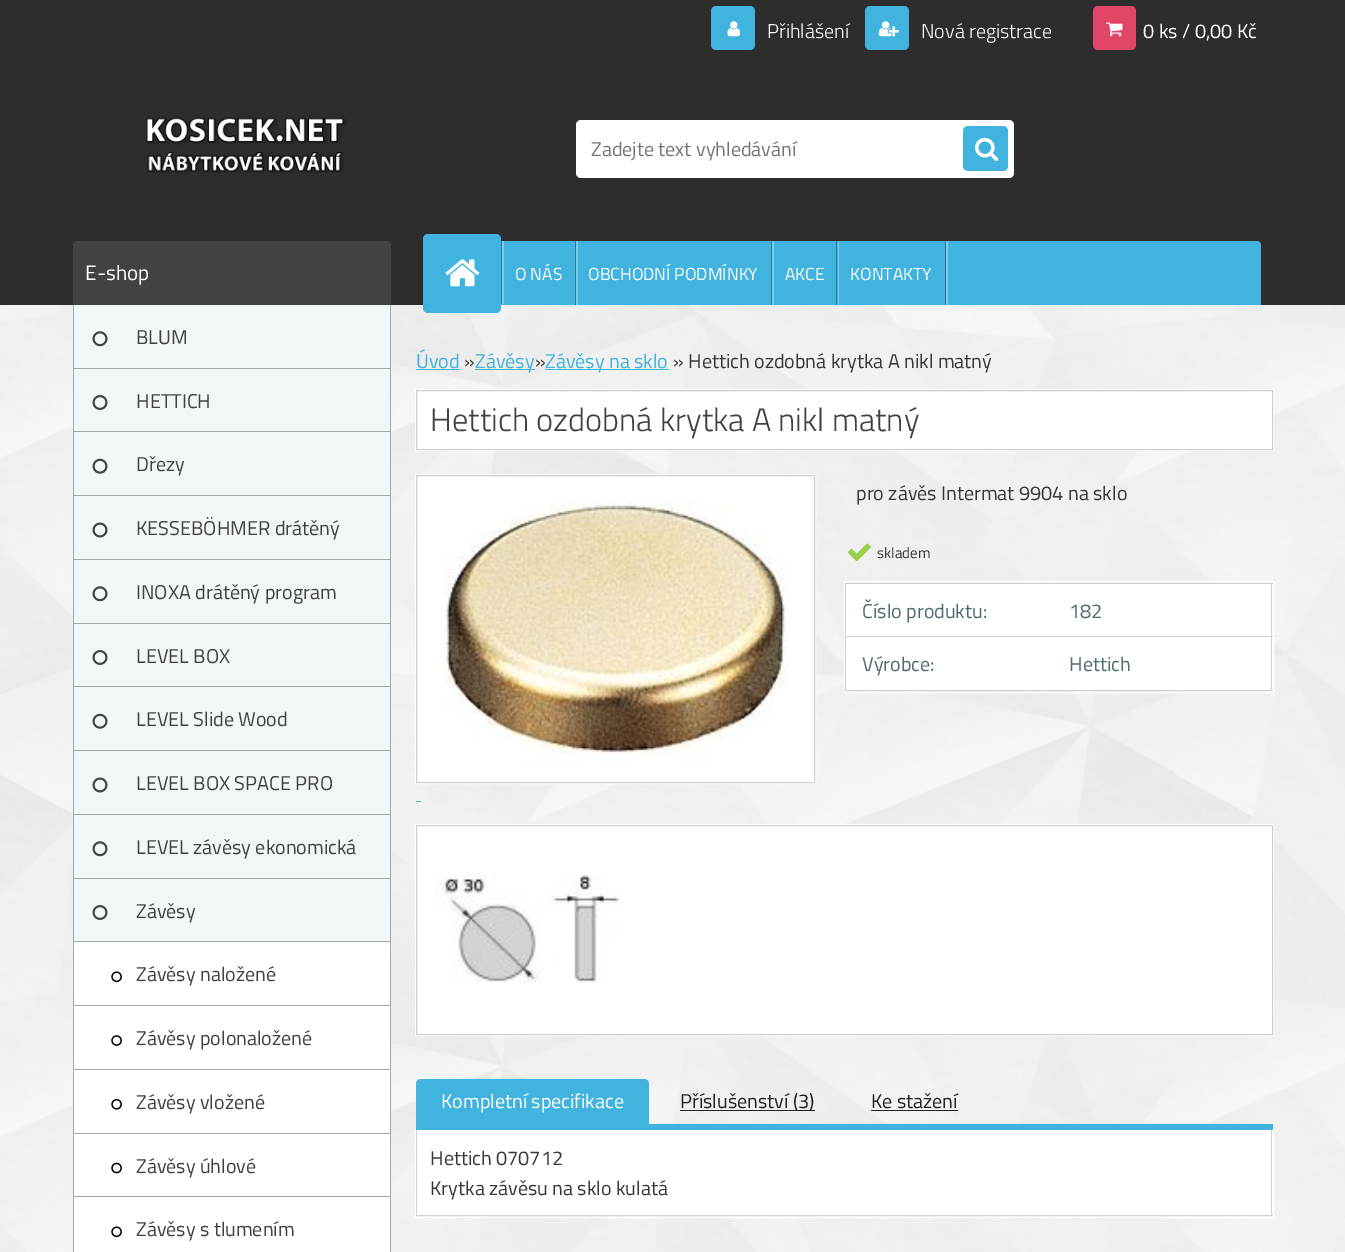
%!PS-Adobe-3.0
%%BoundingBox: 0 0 1345 1252
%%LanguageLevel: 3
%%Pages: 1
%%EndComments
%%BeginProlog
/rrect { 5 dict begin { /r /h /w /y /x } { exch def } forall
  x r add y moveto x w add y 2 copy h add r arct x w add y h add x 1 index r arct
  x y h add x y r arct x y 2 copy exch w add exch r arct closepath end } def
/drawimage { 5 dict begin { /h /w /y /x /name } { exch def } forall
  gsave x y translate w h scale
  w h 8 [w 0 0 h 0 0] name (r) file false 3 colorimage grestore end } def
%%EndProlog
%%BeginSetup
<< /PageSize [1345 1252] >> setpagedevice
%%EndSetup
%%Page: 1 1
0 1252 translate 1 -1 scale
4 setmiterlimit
1 setgray
0 0 1345 1252 rectfill
(images/1.raw) 0 305 1345 947 drawimage
0.176 setgray
0 0 1345 305 rectfill
0.251 0.702 0.875 setrgbcolor
711 6 44 44 5 rrect fill
(images/2.raw) 727 21 13 16 drawimage
865 6 44 44 5 rrect fill
(images/3.raw) 878 21 21 16 drawimage
0.886 0.275 0.4 setrgbcolor
1093 6 43 44 5 rrect fill
(images/4.raw) 1106 22 17 15 drawimage
0.251 0.702 0.875 setrgbcolor
newpath 429 241 moveto 1257 241 lineto 1259 241 1261 243 1261 245 curveto 1261 305 lineto 425 305 lineto 425 245 lineto 425 243 427 241 429 241 curveto closepath fill
0.498 0.8 0.918 setrgbcolor
newpath 445 241 moveto 502 241 lineto 502 304 lineto 445 304 lineto 504 304 lineto 504 241 lineto closepath fill
0.169 0.471 0.584 setrgbcolor
501 241 1 63 rectfill
0.251 0.702 0.875 setrgbcolor
423 234 78 79 5 rrect fill
(images/5.raw) 445 259 35 28 drawimage
0.498 0.8 0.918 setrgbcolor
newpath 504 241 moveto 576 241 lineto 576 305 lineto 578 305 lineto 578 241 lineto closepath fill
0.169 0.471 0.584 setrgbcolor
575 241 1 64 rectfill
0.498 0.8 0.918 setrgbcolor
newpath 578 241 moveto 772 241 lineto 772 305 lineto 774 305 lineto 774 241 lineto closepath fill
0.169 0.471 0.584 setrgbcolor
771 241 1 64 rectfill
0.498 0.8 0.918 setrgbcolor
newpath 774 241 moveto 838 241 lineto 838 305 lineto 839 305 lineto 839 241 lineto closepath fill
0.169 0.471 0.584 setrgbcolor
836 241 1 64 rectfill
0.498 0.8 0.918 setrgbcolor
newpath 839 241 moveto 946 241 lineto 946 305 lineto 948 305 lineto 948 241 lineto closepath fill
0.169 0.471 0.584 setrgbcolor
945 241 1 64 rectfill
0.255 0.259 0.259 setrgbcolor
newpath 77 241 moveto 387 241 lineto 389 241 391 243 391 245 curveto 391 305 lineto 73 305 lineto 73 245 lineto 73 243 75 241 77 241 curveto closepath fill
0.945 0.965 0.976 setrgbcolor
74 305 316 63 rectfill
0.651 setgray
390 305 1 947 rectfill
73 368 318 1 rectfill
73 305 1 64 rectfill
(images/6.raw) 92 331 16 16 drawimage
0.945 0.965 0.976 setrgbcolor
74 369 316 126 rectfill
0.651 setgray
73 431 318 1 rectfill
73 369 1 64 rectfill
(images/7.raw) 92 395 16 15 drawimage
73 495 318 1 rectfill
73 433 1 63 rectfill
(images/8.raw) 92 458 16 16 drawimage
0.945 0.965 0.976 setrgbcolor
74 496 316 63 rectfill
0.651 setgray
73 559 318 1 rectfill
73 496 1 64 rectfill
(images/9.raw) 92 522 16 16 drawimage
0.945 0.965 0.976 setrgbcolor
74 560 316 63 rectfill
0.651 setgray
73 623 318 1 rectfill
73 560 1 64 rectfill
(images/6.raw) 92 586 16 16 drawimage
0.945 0.965 0.976 setrgbcolor
74 624 316 126 rectfill
0.651 setgray
73 686 318 1 rectfill
73 624 1 64 rectfill
(images/7.raw) 92 650 16 15 drawimage
73 750 318 1 rectfill
73 688 1 63 rectfill
(images/8.raw) 92 713 16 16 drawimage
0.945 0.965 0.976 setrgbcolor
74 751 316 63 rectfill
0.651 setgray
73 814 318 1 rectfill
73 751 1 64 rectfill
(images/9.raw) 92 777 16 16 drawimage
0.945 0.965 0.976 setrgbcolor
74 815 316 63 rectfill
0.651 setgray
73 878 318 1 rectfill
73 815 1 64 rectfill
(images/6.raw) 92 841 16 16 drawimage
0.945 0.965 0.976 setrgbcolor
74 879 316 64 rectfill
0.651 setgray
73 941 318 1 rectfill
73 879 1 64 rectfill
(images/7.raw) 92 905 16 15 drawimage
1 setgray
74 943 316 62 rectfill
0.651 setgray
73 1005 318 1 rectfill
73 943 1 63 rectfill
(images/10.raw) 111 971 11 12 drawimage
1 setgray
74 1006 316 63 rectfill
0.651 setgray
73 1069 318 1 rectfill
73 1006 1 64 rectfill
(images/11.raw) 111 1035 11 11 drawimage
1 setgray
74 1070 316 63 rectfill
0.651 setgray
73 1133 318 1 rectfill
73 1070 1 64 rectfill
(images/12.raw) 111 1098 11 12 drawimage
1 setgray
74 1134 316 118 rectfill
0.651 setgray
73 1196 318 1 rectfill
73 1134 1 118 rectfill
(images/13.raw) 111 1162 11 12 drawimage
(images/10.raw) 111 1226 11 12 drawimage
0.251 0.702 0.875 setrgbcolor
416 369 44 1 rectfill
475 369 60 1 rectfill
545 369 124 1 rectfill
1 setgray
415.5 389.5 858 61 rectstroke
newpath 416.5 390.5 moveto 1272.5 390.5 lineto 1272.5 449.5 lineto 416.5 449.5 lineto closepath gsave fill grestore
0.812 setgray
stroke
1 setgray
415.5 474.5 400 309 rectstroke
newpath 416.5 475.5 moveto 814.5 475.5 lineto 814.5 782.5 lineto 416.5 782.5 lineto closepath gsave fill grestore
0.812 setgray
stroke
(images/14.raw) 444 502 344 265 drawimage
0.251 0.702 0.875 setrgbcolor
416 801 5 1 rectfill
(images/15.raw) 848 543 23 18 drawimage
1 setgray
844.5 581.5 429 111 rectstroke
846 584 427 106 rectfill
0.812 setgray
845 583 428 1 rectfill
1271 583 1 108 rectfill
845 690 428 1 rectfill
845 583 1 108 rectfill
845 636 428 1 rectfill
1 setgray
415.5 824.5 858 211 rectstroke
newpath 416.5 825.5 moveto 1272.5 825.5 lineto 1272.5 1034.5 lineto 416.5 1034.5 lineto closepath gsave fill grestore
0.812 setgray
stroke
(images/16.raw) 436 875 184 108 drawimage
1 setgray
415.5 1129.5 858 88 rectstroke
0.251 0.702 0.875 setrgbcolor
416 1124 857 6 rectfill
newpath 421 1079 moveto 644 1079 lineto 647 1079 649 1081 649 1084 curveto 649 1124 lineto 416 1124 lineto 416 1084 lineto 416 1081 418 1079 421 1079 curveto closepath fill
0.133 setgray
680 1110 135 1 rectfill
871 1110 87 1 rectfill
1 setgray
417 1130 856 85 rectfill
0.812 setgray
1271 1130 1 86 rectfill
416 1215 857 1 rectfill
416 1130 1 86 rectfill
(images/17.raw) 146 117 201 56 drawimage
1 setgray
576 120 438 58 5 rrect fill
0.251 0.702 0.875 setrgbcolor
963 126 45 45 5 rrect fill
(images/18.raw) 975 137 24 25 drawimage
/TitilliumWeb-Light [20 0 0 -20 0 0] selectfont
1 setgray
767 38 moveto (Přihlášení) show
921 38 moveto (Nová registrace) show
/TitilliumWeb-Regular [20 0 0 -20 0 0] selectfont
1143 38 moveto (0 ks / 0,00 Kč) show
/TitilliumWeb-Regular [17.5 0 0 -17.5 0 0] selectfont
515 280 moveto (O NÁS) show
588 280 moveto (OBCHODNÍ PODMÍNKY) show
785 280 moveto (AKCE) show
850 280 moveto (KONTAKTY) show
/TitilliumWeb-Regular [21 0 0 -21 0 0] selectfont
85 280 moveto (E-shop) show
/TitilliumWeb-Regular [20 0 0 -20 0 0] selectfont
0.255 setgray
136 344 moveto (BLUM) show
136 408 moveto (HETTICH) show
136 471 moveto (Dřezy) show
136 535 moveto (KESSEBÖHMER drátěný) show
136 599 moveto (INOXA drátěný program) show
136 663 moveto (LEVEL BOX) show
136 726 moveto (LEVEL Slide Wood) show
136 790 moveto (LEVEL BOX SPACE PRO) show
136 854 moveto (LEVEL závěsy ekonomická) show
136 918 moveto (Závěsy) show
136 981 moveto (Závěsy naložené) show
136 1045 moveto (Závěsy polonaložené) show
136 1109 moveto (Závěsy vložené) show
136 1173 moveto (Závěsy úhlové) show
136 1236 moveto (Závěsy s tlumením) show
0.251 0.702 0.875 setrgbcolor
416 368 moveto (Úvod) show
0.22 setgray
464 368 moveto (») show
0.251 0.702 0.875 setrgbcolor
475 368 moveto (Závěsy) show
0.22 setgray
535 368 moveto (») show
0.251 0.702 0.875 setrgbcolor
545 368 moveto (Závěsy na sklo) show
0.22 setgray
673 368 moveto (» Hettich ozdobná krytka A nikl matný) show
/TitilliumWeb-Light [32.5 0 0 -32.5 0 0] selectfont
0.255 setgray
430 431 moveto (Hettich ozdobná krytka A nikl matný) show
/TitilliumWeb-Regular [20 0 0 -20 0 0] selectfont
0.22 setgray
856 500 moveto (pro závěs Intermat 9904 na sklo) show
/TitilliumWeb-Regular [15 0 0 -15 0 0] selectfont
877 558 moveto (skladem) show
/TitilliumWeb-Regular [20 0 0 -20 0 0] selectfont
0.31 0.42 0.447 setrgbcolor
862 618 moveto (Číslo produktu:) show
1069 618 moveto (182) show
862 671 moveto (Výrobce:) show
1069 671 moveto (Hettich) show
1 setgray
441 1108 moveto (Kompletní specifikace) show
0.133 setgray
680 1108 moveto (Příslušenství \(3\)) show
871 1108 moveto (Ke stažení) show
0.22 setgray
430 1165 moveto (Hettich 070712) show
430 1195 moveto (Krytka závěsu na sklo kulatá) show
0.459 setgray
591 156 moveto (Zadejte text vyhledávání) show
showpage
%%EOF
